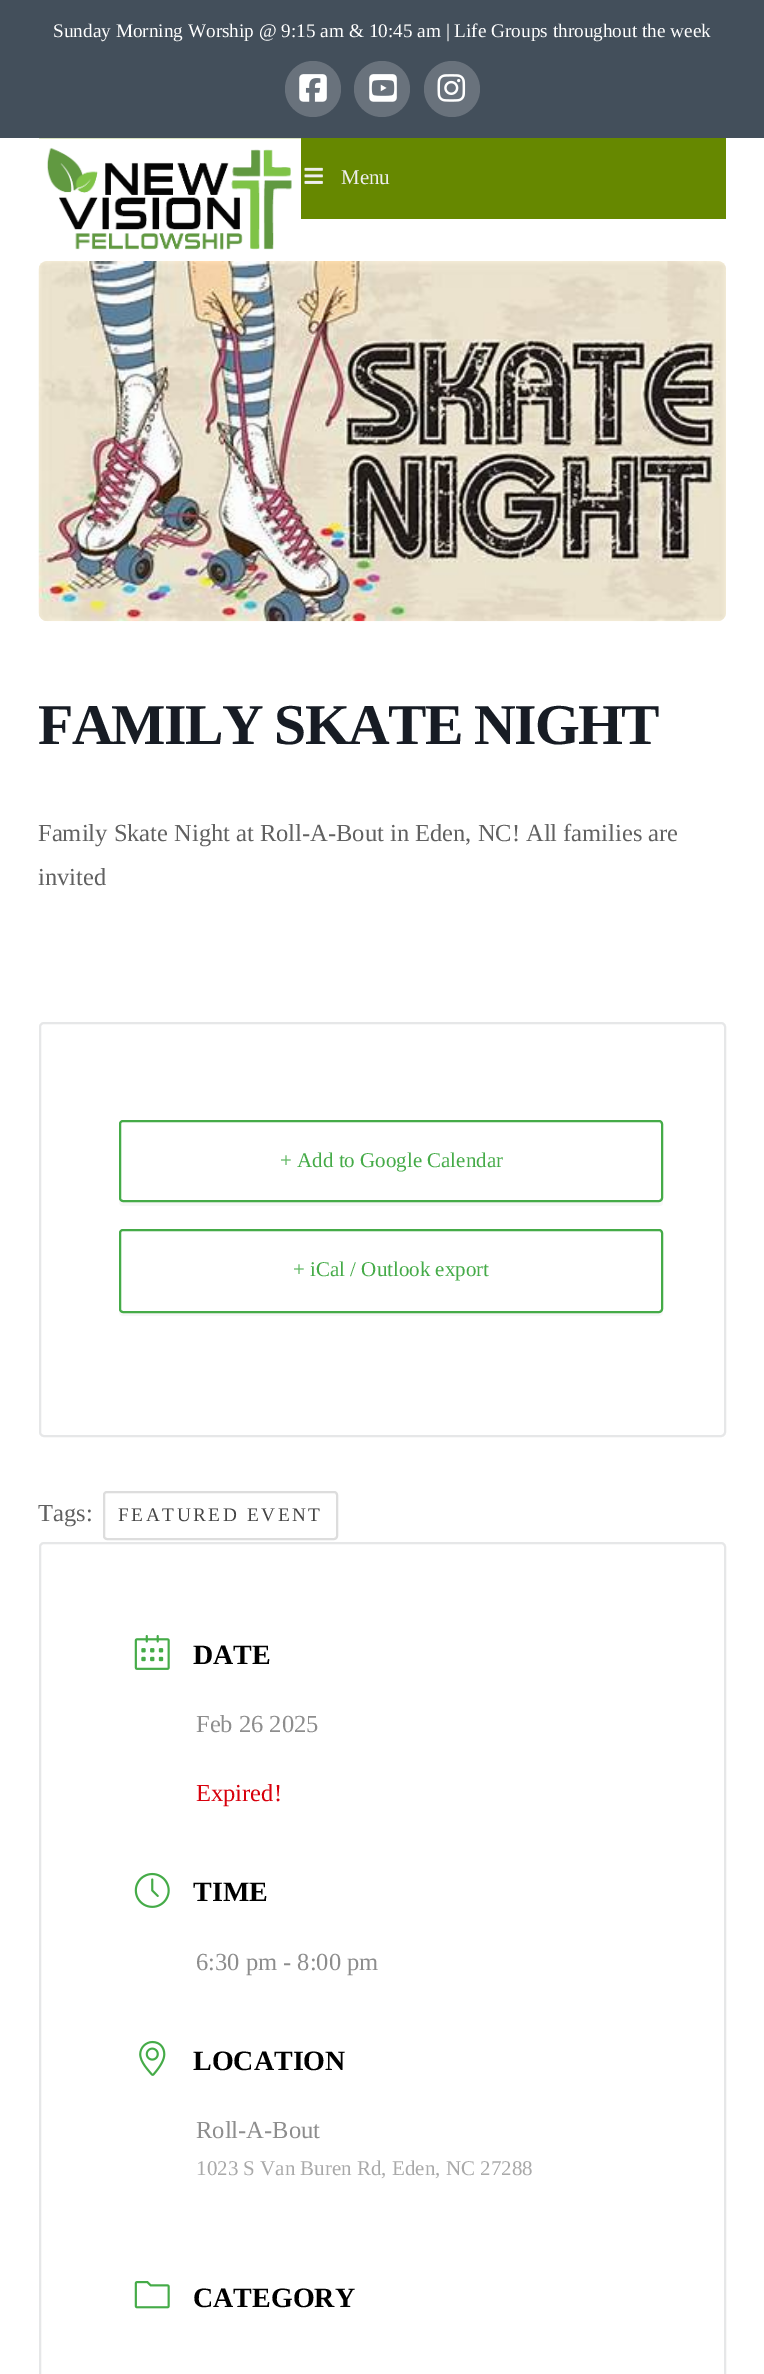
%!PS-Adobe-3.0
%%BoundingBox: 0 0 764 2374
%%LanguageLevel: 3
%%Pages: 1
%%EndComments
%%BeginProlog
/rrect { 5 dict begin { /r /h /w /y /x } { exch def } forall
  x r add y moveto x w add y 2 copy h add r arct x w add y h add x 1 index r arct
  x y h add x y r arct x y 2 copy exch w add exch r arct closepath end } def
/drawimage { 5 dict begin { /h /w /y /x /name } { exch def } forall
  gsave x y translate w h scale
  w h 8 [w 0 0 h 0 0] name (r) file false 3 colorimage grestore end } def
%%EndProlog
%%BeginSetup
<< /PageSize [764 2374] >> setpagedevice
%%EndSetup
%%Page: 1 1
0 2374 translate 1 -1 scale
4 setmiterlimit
1 setgray
0 0 764 2374 rectfill
0.263 0.31 0.357 setrgbcolor
0 0 764 138 rectfill
0.412 0.447 0.486 setrgbcolor
newpath 313 89 28 0 360 arc closepath fill
(images/1.raw) 299 74 28 28 drawimage
newpath 382 89 28 0 360 arc closepath fill
(images/2.raw) 369 74 28 28 drawimage
newpath 452 89 28 0 360 arc closepath fill
(images/3.raw) 437 74 29 28 drawimage
0.4 0.533 0 setrgbcolor
39 138 687 81 rectfill
(images/4.raw) 39 138 262 112 drawimage
(images/5.raw) 304 167 19 17 drawimage
(images/6.raw) 38 261 688 361 drawimage
0.902 0.906 0.91 setrgbcolor
2 setlinewidth
40 1023 685 413 4 rrect stroke
0.969 setgray
newpath 119 1199 moveto 119 1202 119 1206 123 1206 curveto 659 1206 lineto 663 1206 663 1203 663 1200 curveto 662 1201 661 1202 660 1202 curveto 122 1202 lineto 121 1202 119 1201 119 1199 curveto closepath fill
0.271 0.671 0.282 setrgbcolor
120 1121 542 80 3 rrect stroke
0.969 setgray
newpath 119 1309 moveto 119 1312 lineto 119 1314 121 1316 123 1316 curveto 659 1316 lineto 661 1316 663 1314 663 1312 curveto 663 1310 lineto 662 1312 661 1312 660 1312 curveto 122 1312 lineto 121 1312 119 1311 119 1309 curveto closepath fill
1 setgray
120 1230 542 82 3 rrect gsave fill grestore
0.271 0.671 0.282 setrgbcolor
stroke
0.867 setgray
104 1492 233 47 3 rrect stroke
0.902 0.906 0.91 setrgbcolor
40 1543 685 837 4 rrect stroke
(images/7.raw) 134 1635 36 35 drawimage
(images/8.raw) 134 1872 36 36 drawimage
(images/9.raw) 139 2040 27 36 drawimage
(images/10.raw) 134 2281 36 28 drawimage
/LiberationSerif-Regular [19.25 0 0 -19.25 0 0] selectfont
1 setgray
53 37 moveto (Sunday Morning Worship @ 9:15 am & 10:45 am | Life Groups throughout the week) show
/LiberationSerif-Regular [21 0 0 -21 0 0] selectfont
0.933 setgray
341 184 moveto (Menu) show
/LiberationSerif-Bold [57.75 0 0 -57.75 0 0] selectfont
0.09 0.11 0.141 setrgbcolor
38 744 moveto -1.75 0 (FAMILY SKATE NIGHT) ashow
/LiberationSerif-Regular [24.5 0 0 -24.5 0 0] selectfont
0.38 setgray
38 841 moveto (Family Skate Night at Roll-A-Bout in Eden, NC! All families are) show
38 885 moveto (invited) show
/LiberationSerif-Regular [21 0 0 -21 0 0] selectfont
0.271 0.671 0.282 setrgbcolor
280 1167 moveto (+ Add to Google Calendar) show
293 1276 moveto (+ iCal / Outlook export) show
/LiberationSerif-Regular [24.5 0 0 -24.5 0 0] selectfont
0.38 setgray
38 1521 moveto (Tags:) show
/LiberationSerif-Regular [19.25 0 0 -19.25 0 0] selectfont
0.267 setgray
118 1521 moveto 2.6 0 (FEATURED EVENT) ashow
/LiberationSerif-Bold [28 0 0 -28 0 0] selectfont
0 setgray
193 1664 moveto (DATE) show
/LiberationSerif-Regular [24.5 0 0 -24.5 0 0] selectfont
0.553 setgray
196 1732 moveto (Feb 26 2025) show
0.847 0 0.047 setrgbcolor
196 1801 moveto (Expired!) show
/LiberationSerif-Bold [28 0 0 -28 0 0] selectfont
0 setgray
193 1901 moveto (TIME) show
/LiberationSerif-Regular [24.5 0 0 -24.5 0 0] selectfont
0.553 setgray
196 1970 moveto (6:30 pm - 8:00 pm) show
/LiberationSerif-Bold [28 0 0 -28 0 0] selectfont
0 setgray
193 2070 moveto (LOCATION) show
/LiberationSerif-Regular [24.5 0 0 -24.5 0 0] selectfont
0.553 setgray
196 2138 moveto (Roll-A-Bout) show
/LiberationSerif-Regular [21 0 0 -21 0 0] selectfont
0.663 setgray
196 2175 moveto (1023 S Van Buren Rd, Eden, NC 27288) show
/LiberationSerif-Bold [28 0 0 -28 0 0] selectfont
0 setgray
193 2307 moveto (CATEGORY) show
showpage
%%EOF
